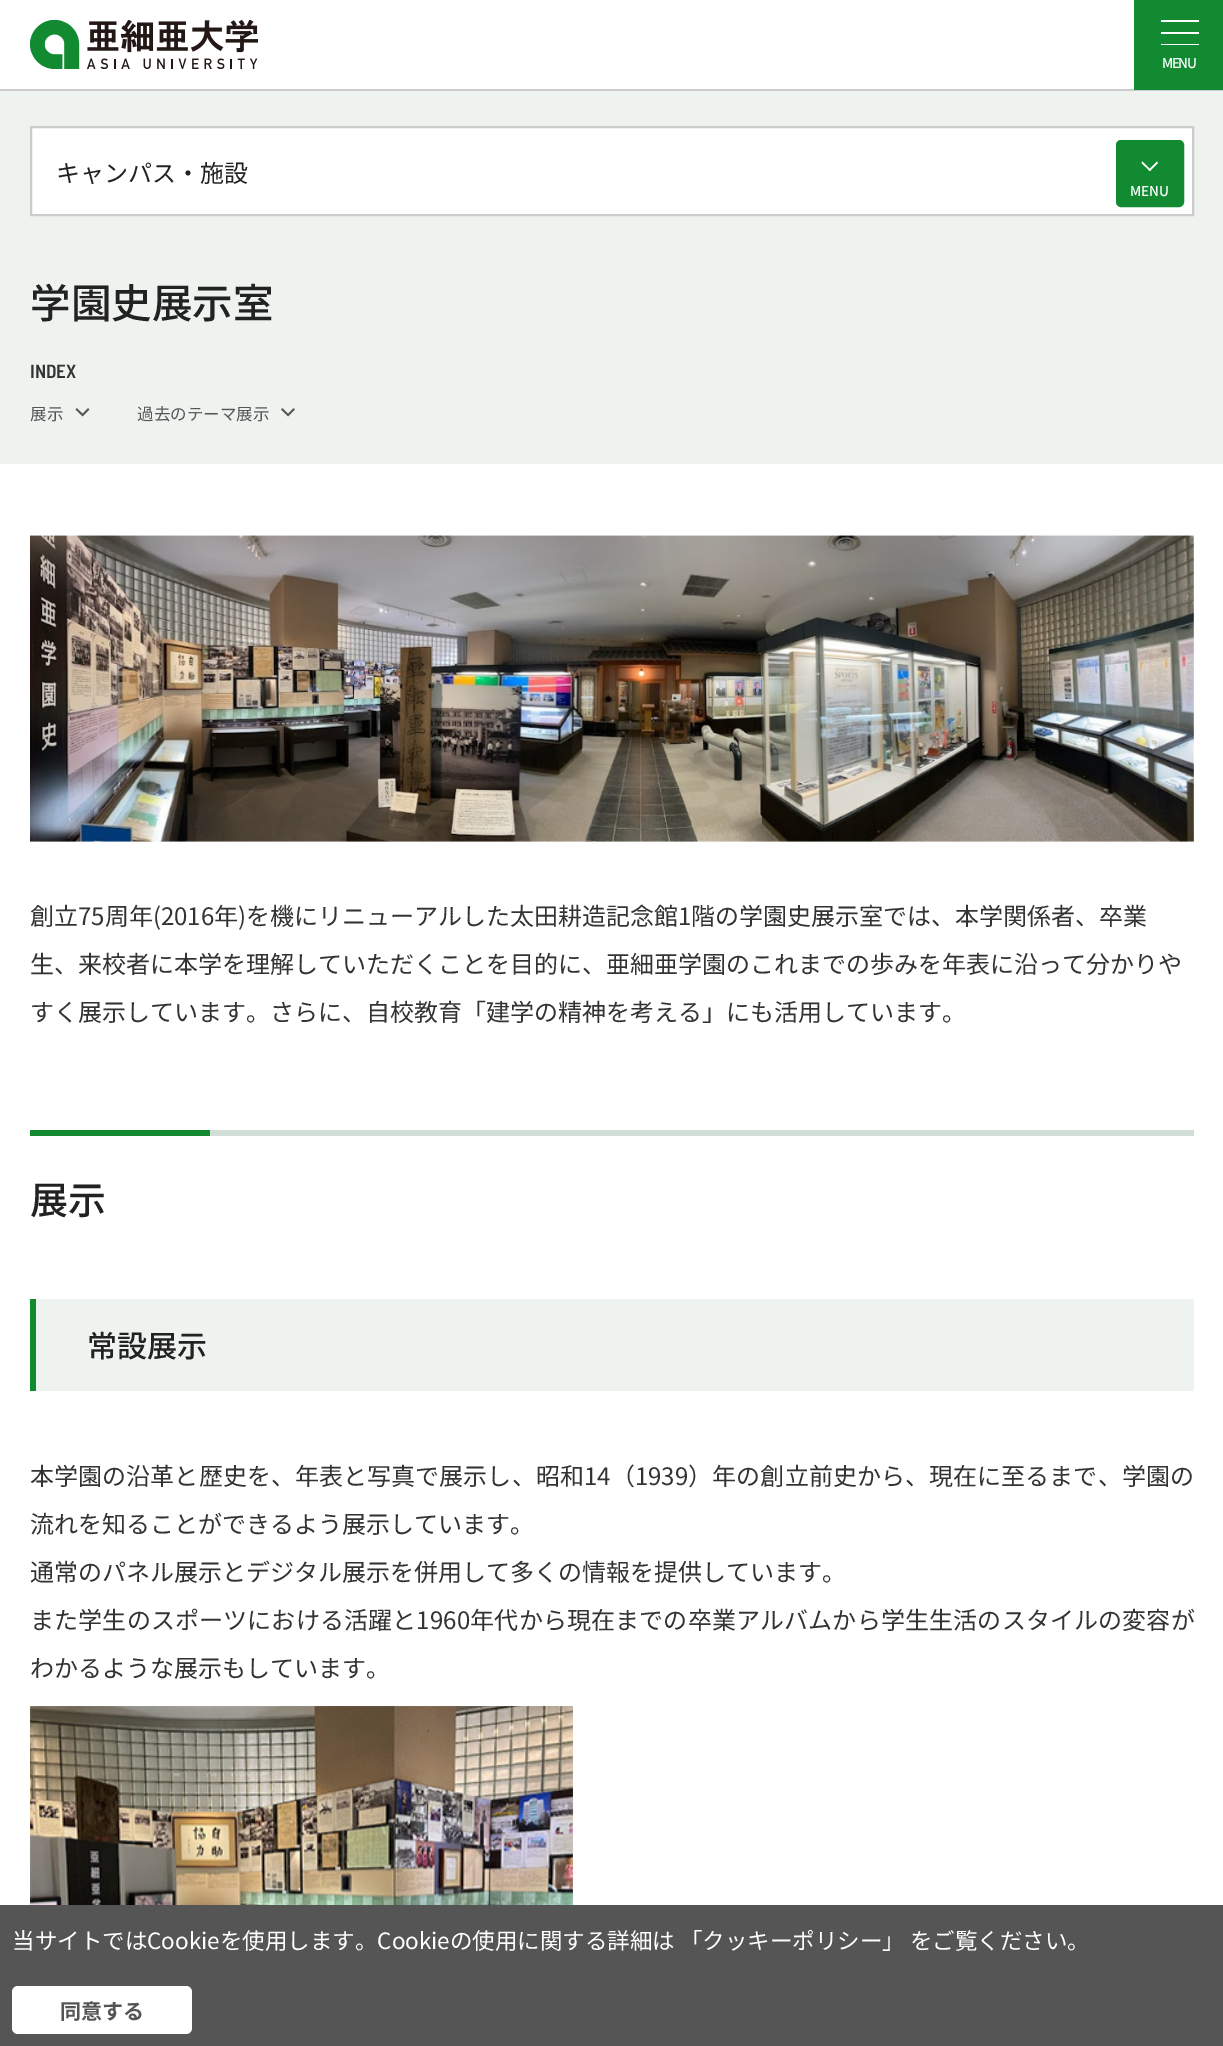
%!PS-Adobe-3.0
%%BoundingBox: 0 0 1223 2046
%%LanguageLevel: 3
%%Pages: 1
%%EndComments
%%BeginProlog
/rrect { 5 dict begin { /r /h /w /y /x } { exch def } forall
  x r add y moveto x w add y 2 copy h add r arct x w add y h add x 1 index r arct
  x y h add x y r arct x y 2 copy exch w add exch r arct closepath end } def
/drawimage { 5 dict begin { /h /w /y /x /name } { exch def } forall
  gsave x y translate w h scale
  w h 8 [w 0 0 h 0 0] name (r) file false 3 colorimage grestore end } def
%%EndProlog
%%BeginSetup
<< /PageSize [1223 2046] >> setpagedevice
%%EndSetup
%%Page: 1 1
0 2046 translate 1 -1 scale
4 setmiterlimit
1 setgray
0 0 1223 2046 rectfill
0.8 setgray
0 89 1223 2 rectfill
(images/1.raw) 30 20 228 49 drawimage
0.067 0.541 0.196 setrgbcolor
1134 0 89 90 rectfill
1 setgray
1161 20 38 2 rectfill
1161 32 38 2 rectfill
1161 44 38 1 rectfill
0.937 0.953 0.941 setrgbcolor
0 91 1223 373 rectfill
1 setgray
newpath 31 127 moveto 1193 127 lineto 1193 215 lineto 31 215 lineto closepath gsave fill grestore
0.8 setgray
2 setlinewidth
stroke
0.067 0.541 0.196 setrgbcolor
1117 141 66 65 4 rrect gsave fill grestore
stroke
1 setgray
newpath 1157 161.5 moveto 1158 163 lineto 1150 171 lineto 1148.5 170 lineto closepath fill
newpath 1142.5 161.5 moveto 1151 170 lineto 1150 171 lineto 1141.5 163 lineto closepath fill
(images/2.raw) 75 408 15 9 drawimage
(images/3.raw) 281 408 14 9 drawimage
(images/4.raw) 30 535 1164 307 drawimage
0.067 0.541 0.196 setrgbcolor
30 1130 180 6 rectfill
0.824 0.867 0.835 setrgbcolor
210 1130 984 6 rectfill
0.937 0.953 0.941 setrgbcolor
36 1299 1158 92 rectfill
0.067 0.541 0.196 setrgbcolor
30 1299 6 92 rectfill
(images/5.raw) 30 1706 543 199 drawimage
0.333 setgray
0 1905 1223 141 rectfill
1 setgray
12 1986 180 48 6 rrect fill
/NotoSansJP-Medium [13.5 0 0 -13.5 0 0] selectfont
1162 68 moveto -1.5 0 (MENU) ashow
/NotoSansJP-Regular [24 0 0 -24 0 0] selectfont
0.133 setgray
56 182 moveto (キャンパス・施設) show
/NotoSansJP-Medium [13.5 0 0 -13.5 0 0] selectfont
1 setgray
1130 196 moveto (MENU) show
/NotoSansJP-Medium [40.5 0 0 -40.5 0 0] selectfont
0.133 setgray
30 318 moveto (学園史展示室) show
/BarlowSemiCondensed-SemiBold [19 0 0 -19 0 0] selectfont
0.2 setgray
30 378 moveto (INDEX) show
/NotoSansJP-Regular [16.5 0 0 -16.5 0 0] selectfont
0.333 setgray
30 420 moveto (展示) show
137 420 moveto (過去のテーマ展示) show
/NotoSansJP-Regular [24 0 0 -24 0 0] selectfont
0.2 setgray
30 925 moveto (創立75周年\(2016年\)を機にリニューアルした太田耕造記念館1階の学園史展示室では、本学関係者、卒業) show
30 973 moveto (生、来校者に本学を理解していただくことを目的に、亜細亜学園のこれまでの歩みを年表に沿って分かりや) show
30 1021 moveto (すく展示しています。さらに、自校教育「建学の精神を考える」にも活用しています。) show
/NotoSansJP-Medium [38 0 0 -38 0 0] selectfont
0.133 setgray
30 1214 moveto (展示) show
/NotoSansJP-Medium [30 0 0 -30 0 0] selectfont
87 1357 moveto (常設展示) show
/NotoSansJP-Regular [24 0 0 -24 0 0] selectfont
0.2 setgray
30 1485 moveto 0.08 0 (本学園の沿革と歴史を、年表と写真で展示し、昭和14（1939）年の創立前史から、現在に至るまで、学園の) ashow
30 1533 moveto (流れを知ることができるよう展示しています。) show
30 1581 moveto (通常のパネル展示とデジタル展示を併用して多くの情報を提供しています。) show
30 1629 moveto 0.15 0 (また学生のスポーツにおける活躍と1960年代から現在までの卒業アルバムから学生生活のスタイルの変容が) ashow
30 1677 moveto (わかるような展示もしています。) show
/NotoSansJP-Regular [22.5 0 0 -22.5 0 0] selectfont
1 setgray
12 1949 moveto (当サイトではCookieを使用します。Cookieの使用に関する詳細は 「クッキーポリシー」 をご覧ください。) show
/NotoSansJP-Bold [21 0 0 -21 0 0] selectfont
0.333 setgray
60 2019 moveto (同意する) show
showpage
%%EOF
